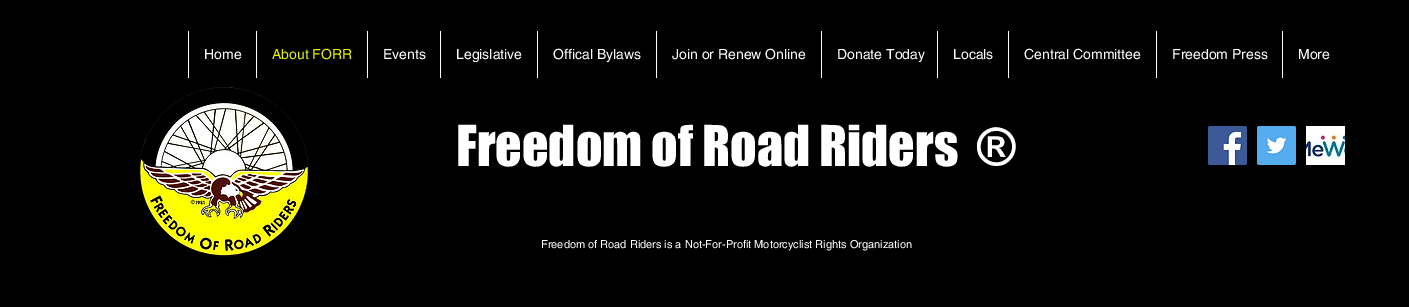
%!PS-Adobe-3.0
%%BoundingBox: 0 0 1409 307
%%LanguageLevel: 3
%%Pages: 1
%%EndComments
%%BeginProlog
/drawimage { 5 dict begin { /h /w /y /x /name } { exch def } forall
  gsave x y translate w h scale
  w h 8 [w 0 0 h 0 0] name (r) file false 3 colorimage grestore end } def
%%EndProlog
%%BeginSetup
<< /PageSize [1409 307] >> setpagedevice
%%EndSetup
%%Page: 1 1
0 307 translate 1 -1 scale
4 setmiterlimit
0 setgray
0 0 1409 307 rectfill
1 setgray
188 31 1 47 rectfill
256 31 1 47 rectfill
367 31 1 47 rectfill
440 31 1 47 rectfill
537 31 1 47 rectfill
656 31 1 47 rectfill
821 31 1 47 rectfill
937 31 1 47 rectfill
1008 31 1 47 rectfill
1156 31 1 47 rectfill
1282 31 1 47 rectfill
(images/1.raw) 139 87 170 170 drawimage
(images/2.raw) 1208 126 39 39 drawimage
(images/3.raw) 1257 126 39 39 drawimage
(images/4.raw) 1306 126 39 39 drawimage
/helvetica-Regular [14 0 0 -14 0 0] selectfont
204 59 moveto (Home) show
0.898 0.941 0.024 setrgbcolor
272 59 moveto (About FORR) show
1 setgray
383 59 moveto (Events) show
456 59 moveto (Legislative) show
553 59 moveto (Offical Bylaws) show
672 59 moveto (Join or Renew Online) show
837 59 moveto (Donate Today) show
953 59 moveto (Locals) show
1024 59 moveto (Central Committee) show
1172 59 moveto (Freedom Press) show
1298 59 moveto (More) show
/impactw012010-Regular [52 0 0 -52 0 0] selectfont
456 166 moveto (Freedom of Road Riders  ®) show
/helvetica-Regular [11 0 0 -11 0 0] selectfont
541 248 moveto (Freedom of Road Riders is a Not-For-Profit Motorcyclist Rights Organization) show
showpage
%%EOF
